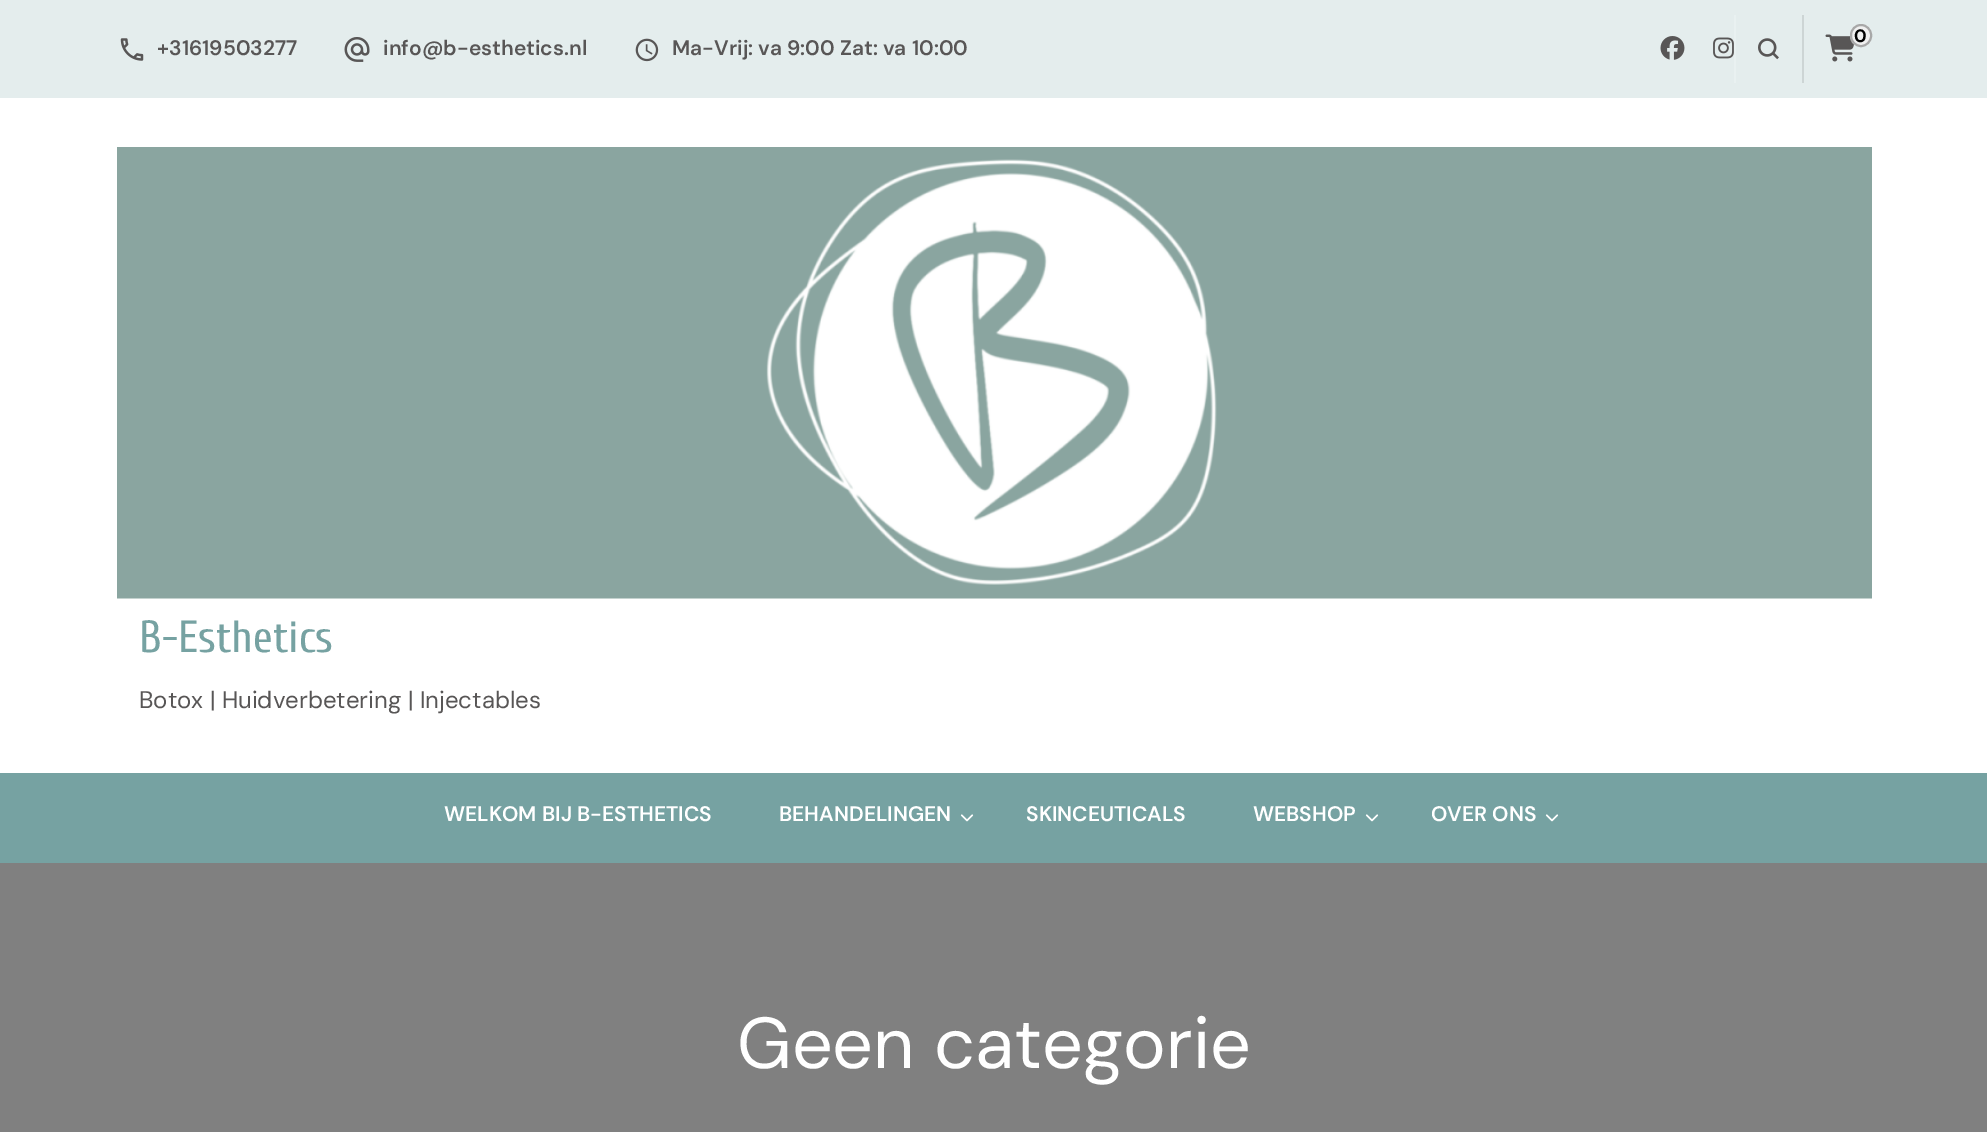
%!PS-Adobe-3.0
%%BoundingBox: 0 0 1987 1132
%%LanguageLevel: 3
%%Pages: 1
%%EndComments
%%BeginProlog
/setalpha { dup .setfillconstantalpha .setstrokeconstantalpha } def
/rrect { 5 dict begin { /r /h /w /y /x } { exch def } forall
  x r add y moveto x w add y 2 copy h add r arct x w add y h add x 1 index r arct
  x y h add x y r arct x y 2 copy exch w add exch r arct closepath end } def
/drawimage { 5 dict begin { /h /w /y /x /name } { exch def } forall
  gsave x y translate w h scale
  w h 8 [w 0 0 h 0 0] name (r) file false 3 colorimage grestore end } def
%%EndProlog
%%BeginSetup
<< /PageSize [1987 1132] /PageUsesTransparency true >> setpagedevice
%%EndSetup
%%Page: 1 1
0 .pushpdf14devicefilter
0 1132 translate 1 -1 scale
4 setmiterlimit
1 setgray
0 0 1987 1132 rectfill
0.894 0.929 0.929 setrgbcolor
0 0 1987 98 rectfill
(images/1.raw) 120 38 24 23 drawimage
(images/2.raw) 344 37 26 25 drawimage
(images/3.raw) 635 38 24 24 drawimage
(images/4.raw) 1660 36 25 24 drawimage
(images/5.raw) 1713 37 21 22 drawimage
0.804 0.835 0.835 setrgbcolor
1802 15 2 68 rectfill
0.914 0.945 0.945 setrgbcolor
1734 15 2 68 rectfill
(images/6.raw) 1758 38 21 22 drawimage
(images/7.raw) 1825 34 30 28 drawimage
0.941 setgray
1850 24 22 23 11 rrect fill
0.3 setalpha
0 setgray
2 setlinewidth
1851 25 20 21 10 rrect stroke
1 setalpha
(images/8.raw) 117 147 1755 452 drawimage
0.463 0.635 0.635 setrgbcolor
0 773 1987 90 rectfill
(images/9.raw) 960 814 14 8 drawimage
(images/9.raw) 1365 814 14 8 drawimage
(images/9.raw) 1545 814 14 8 drawimage
0.502 setgray
0 863 1987 269 rectfill
/DMSans-SemiBold [21 0 0 -21 0 0] selectfont
0.345 0.337 0.337 setrgbcolor
157 55 moveto (+31619503277) show
383 55 moveto (info@b-esthetics.nl) show
672 55 moveto (Ma-Vrij: va 9:00 Zat: va 10:00) show
/DMSans-Bold [18 0 0 -18 0 0] selectfont
0 setgray
1854 42 moveto (0) show
/Cuprum-Regular [45 0 0 -45 0 0] selectfont
0.463 0.635 0.635 setrgbcolor
139 652 moveto (B-Esthetics) show
/DMSans-Regular [24 0 0 -24 0 0] selectfont
0.345 0.337 0.337 setrgbcolor
139 708 moveto (Botox | Huidverbetering | Injectables) show
/DMSans-SemiBold [21 0 0 -21 0 0] selectfont
1 setgray
444 821 moveto (WELKOM BIJ B-ESTHETICS) show
779 821 moveto (BEHANDELINGEN) show
1026 821 moveto (SKINCEUTICALS) show
1253 821 moveto (WEBSHOP) show
1431 821 moveto (OVER ONS) show
/DMSans-Regular [72 0 0 -72 0 0] selectfont
737 1068 moveto (Geen categorie) show
.poppdf14devicefilter showpage
%%EOF
